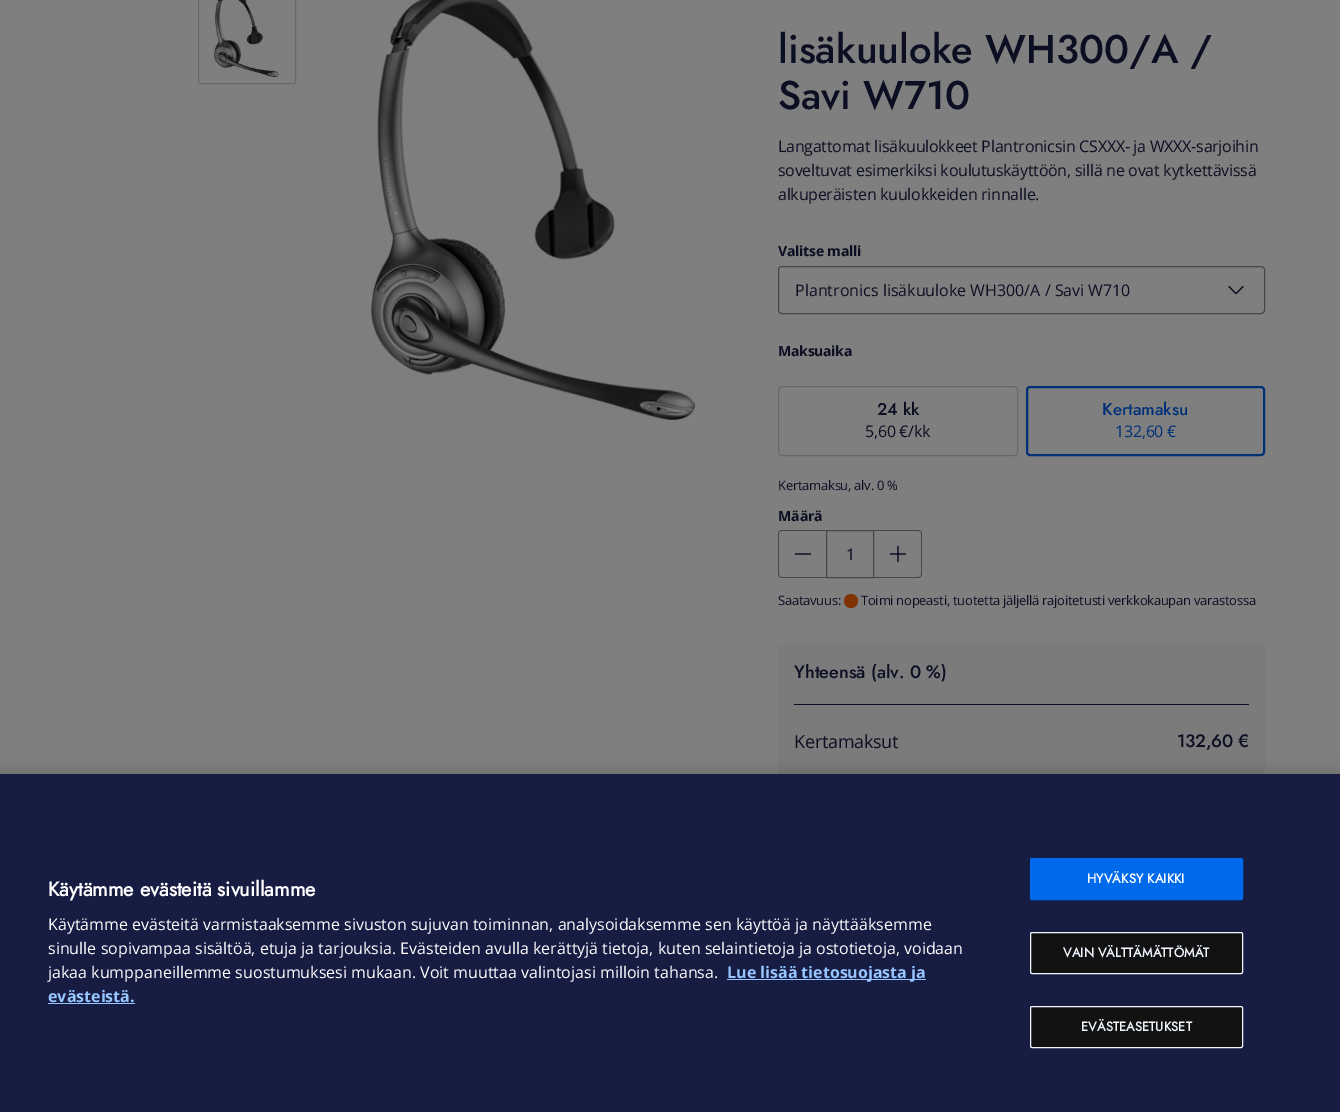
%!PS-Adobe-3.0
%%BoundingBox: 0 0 1340 1112
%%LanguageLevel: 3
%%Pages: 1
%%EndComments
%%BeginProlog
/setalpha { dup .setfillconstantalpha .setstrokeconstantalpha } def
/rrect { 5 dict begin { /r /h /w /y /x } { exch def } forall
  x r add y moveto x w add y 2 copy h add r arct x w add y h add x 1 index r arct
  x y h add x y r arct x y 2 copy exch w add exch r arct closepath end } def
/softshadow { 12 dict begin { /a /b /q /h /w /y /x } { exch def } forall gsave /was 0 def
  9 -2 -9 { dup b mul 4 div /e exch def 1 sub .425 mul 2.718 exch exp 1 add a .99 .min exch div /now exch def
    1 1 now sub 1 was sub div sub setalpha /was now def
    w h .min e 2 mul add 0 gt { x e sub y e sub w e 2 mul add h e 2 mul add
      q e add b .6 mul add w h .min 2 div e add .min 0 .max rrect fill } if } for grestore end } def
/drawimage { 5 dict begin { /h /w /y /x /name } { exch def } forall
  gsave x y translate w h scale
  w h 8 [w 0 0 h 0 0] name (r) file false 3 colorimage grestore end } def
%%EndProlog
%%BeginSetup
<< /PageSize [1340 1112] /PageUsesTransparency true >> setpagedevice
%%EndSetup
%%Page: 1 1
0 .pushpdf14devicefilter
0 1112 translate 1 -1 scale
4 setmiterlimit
0.498 setgray
0 0 1340 1112 rectfill
0.412 0.412 0.42 setrgbcolor
198.5 -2.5 97 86 1.5 rrect stroke
(images/1.raw) 214 0 65 77 drawimage
(images/2.raw) 371 0 324 420 drawimage
0.278 0.278 0.294 setrgbcolor
778.5 266.5 486 47 3.5 rrect stroke
(images/3.raw) 1228 285 16 10 drawimage
0.412 0.412 0.42 setrgbcolor
778.5 386.5 239 69 3.5 rrect stroke
0 0.188 0.467 setrgbcolor
2 setlinewidth
1027 387 237 68 3 rrect stroke
0.278 0.278 0.294 setrgbcolor
newpath 782 530 moveto 826 530 lineto 826 578 lineto 782 578 lineto 780 578 778 576 778 574 curveto 778 534 lineto 778 532 780 530 782 530 curveto closepath 782 531 moveto 826 531 lineto 826 577 lineto 782 577 lineto 780 577 779 576 779 574 curveto 779 534 lineto 779 532 780 531 782 531 curveto closepath eofill
(images/4.raw) 794 553 18 2 drawimage
1 setlinewidth
826.5 530.5 47 47 rectstroke
newpath 874 530 moveto 918 530 lineto 920 530 922 532 922 534 curveto 922 574 lineto 922 576 920 578 918 578 curveto 874 578 lineto closepath 874 531 moveto 918 531 lineto 920 531 921 532 921 534 curveto 921 574 lineto 921 576 920 577 918 577 curveto 874 577 lineto closepath eofill
(images/5.raw) 889 545 18 18 drawimage
0.502 0.196 0 setrgbcolor
newpath 851 601 7 0 360 arc closepath fill
0.482 0.482 0.486 setrgbcolor
778 644 487 130 rectfill
0.047 0.055 0.133 setrgbcolor
794 704 455 1 rectfill
0 setgray
0 774 1340 338 0 9 0.2 softshadow
0.09 0.11 0.263 setrgbcolor
0 774 1340 338 rectfill
0.588 0.773 1 setrgbcolor
727 979 199 1 rectfill
48 1003 87 1 rectfill
0 0.416 0.929 setrgbcolor
1030.5 858.5 212 41 1.5 rrect gsave fill grestore
stroke
0.071 setgray
1030.5 932.5 212 41 1.5 rrect gsave fill grestore
0.941 0.969 1 setrgbcolor
stroke
0.071 setgray
1030.5 1006.5 212 41 1.5 rrect gsave fill grestore
0.941 0.969 1 setrgbcolor
stroke
/Jost-Medium [40 0 0 -40 0 0] selectfont
0.047 0.055 0.133 setrgbcolor
778 63 moveto (lisäkuuloke WH300/A /) show
778 109 moveto (Savi W710) show
/OpenSans-Regular [16 0 0 -16 0 0] selectfont
778 152 moveto -0.25 0 (Langattomat lisäkuulokkeet Plantronicsin CSXXX- ja WXXX-sarjoihin) ashow
778 176 moveto -0.25 0 (soveltuvat esimerkiksi koulutuskäyttöön, sillä ne ovat kytkettävissä) ashow
778 200 moveto -0.25 0 (alkuperäisten kuulokkeiden rinnalle.) ashow
/OpenSans-Bold [14 0 0 -14 0 0] selectfont
778 256 moveto -0.25 0 (Valitse malli) ashow
/OpenSans-Regular [16 0 0 -16 0 0] selectfont
795 296 moveto (Plantronics lisäkuuloke WH300/A / Savi W710) show
/OpenSans-Bold [14 0 0 -14 0 0] selectfont
778 356 moveto -0.25 0 (Maksuaika) ashow
/Jost-Medium [17 0 0 -17 0 0] selectfont
877 415 moveto (24 kk) show
/OpenSans-Regular [16 0 0 -16 0 0] selectfont
865 437 moveto -0.25 0 (5,60 €/kk) ashow
/Jost-Medium [17 0 0 -17 0 0] selectfont
0 0.188 0.467 setrgbcolor
1102 415 moveto (Kertamaksu) show
/OpenSans-Regular [16 0 0 -16 0 0] selectfont
1115 437 moveto -0.25 0 (132,60 €) ashow
/OpenSans-Regular [13 0 0 -13 0 0] selectfont
0.047 0.055 0.133 setrgbcolor
778 490 moveto -0.25 0 (Kertamaksu, alv. 0 %) ashow
/OpenSans-Bold [14 0 0 -14 0 0] selectfont
778 521 moveto (Määrä) show
/OpenSans-Regular [16 0 0 -16 0 0] selectfont
846 560 moveto (1) show
/OpenSans-Regular [13 0 0 -13 0 0] selectfont
778 605 moveto -0.25 0 (Saatavuus:) ashow
861 605 moveto -0.25 0 (Toimi nopeasti, tuotetta jäljellä rajoitetusti verkkokaupan varastossa) ashow
/Jost-Medium [18 0 0 -18 0 0] selectfont
794 678 moveto (Yhteensä \(alv. 0 %\)) show
/OpenSans-Regular [18 0 0 -18 0 0] selectfont
794 748 moveto -0.25 0 (Kertamaksut) ashow
/Jost-Medium [18 0 0 -18 0 0] selectfont
1177 747 moveto -0.25 0 (132,60 €) ashow
/Jost-Bold [20 0 0 -20 0 0] selectfont
1 setgray
48 896 moveto (Käytämme evästeitä sivuillamme) show
/OpenSans-Regular [16 0 0 -16 0 0] selectfont
48 930 moveto (Käytämme evästeitä varmistaaksemme sivuston sujuvan toiminnan, analysoidaksemme sen käyttöä ja näyttääksemme) show
48 954 moveto (sinulle sopivampaa sisältöä, etuja ja tarjouksia. Evästeiden avulla kerättyjä tietoja, kuten selaintietoja ja ostotietoja, voidaan) show
48 978 moveto (jakaa kumppaneillemme suostumuksesi mukaan. Voit muuttaa valintojasi milloin tahansa.) show
/OpenSans-Bold [16 0 0 -16 0 0] selectfont
0.588 0.773 1 setrgbcolor
727 978 moveto (Lue lisää tietosuojasta ja) show
48 1002 moveto (evästeistä.) show
/Jost-Bold [13 0 0 -13 0 0] selectfont
1 setgray
1087 883 moveto 0.1 0 (HYVÄKSY KAIKKI) ashow
0.941 0.969 1 setrgbcolor
1063 957 moveto 0.1 0 (VAIN VÄLTTÄMÄTTÖMÄT) ashow
1081 1031 moveto 0.1 0 (EVÄSTEASETUKSET) ashow
.poppdf14devicefilter showpage
%%EOF
